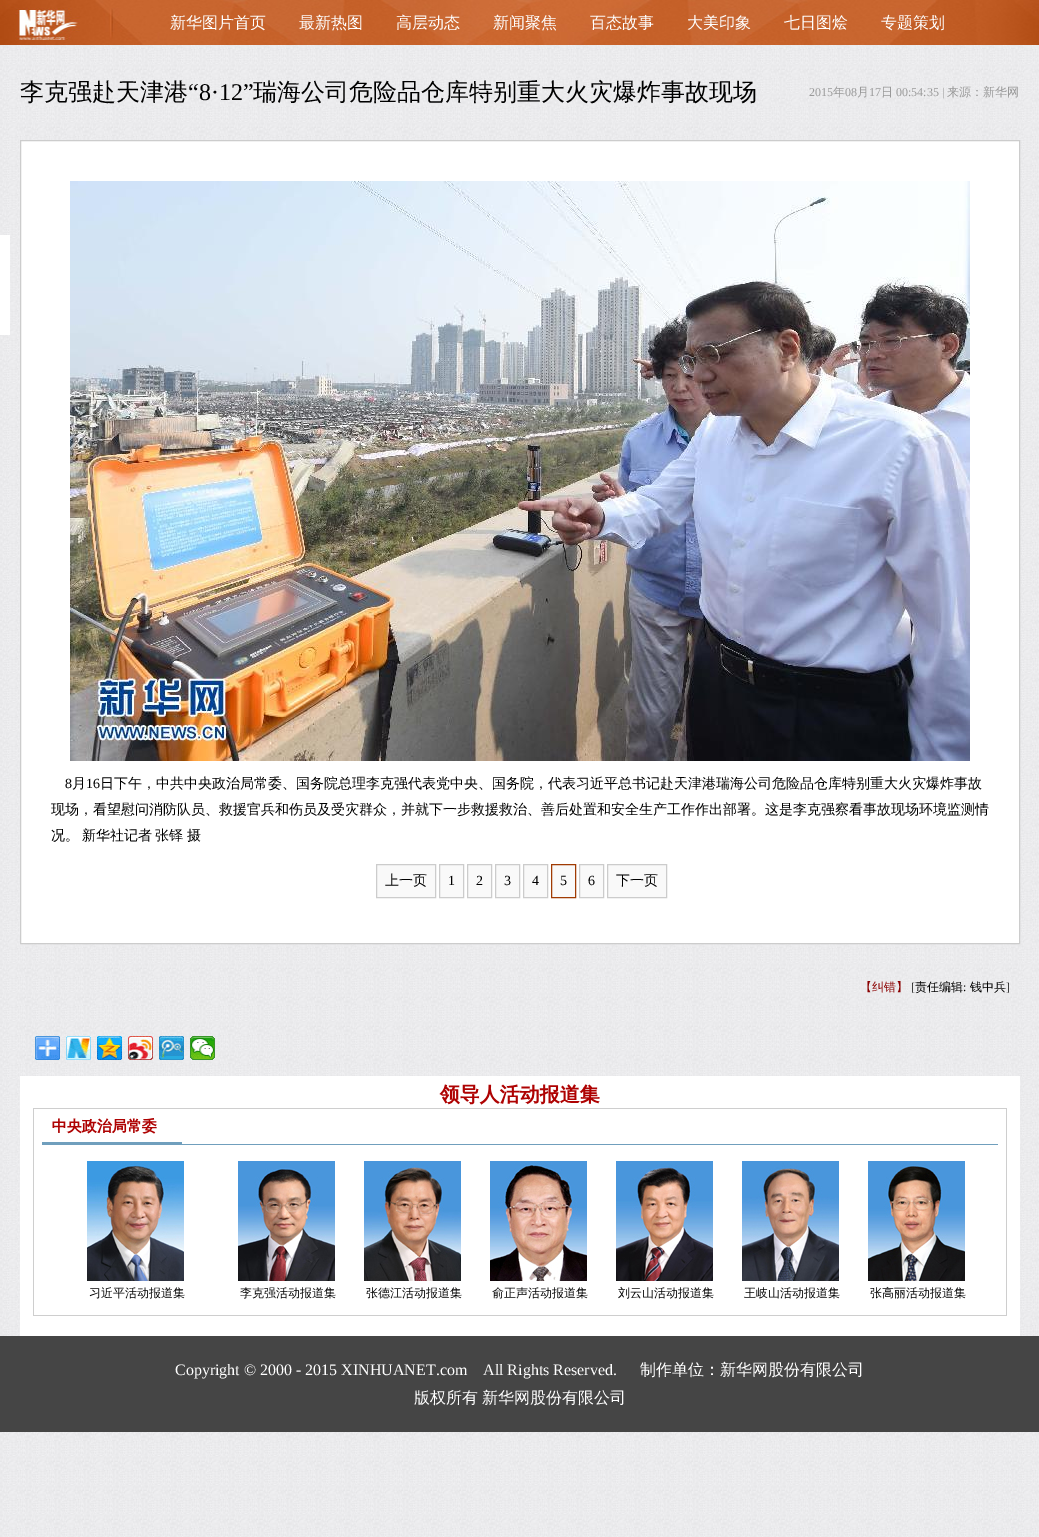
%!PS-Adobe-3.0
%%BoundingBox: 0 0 1039 1537
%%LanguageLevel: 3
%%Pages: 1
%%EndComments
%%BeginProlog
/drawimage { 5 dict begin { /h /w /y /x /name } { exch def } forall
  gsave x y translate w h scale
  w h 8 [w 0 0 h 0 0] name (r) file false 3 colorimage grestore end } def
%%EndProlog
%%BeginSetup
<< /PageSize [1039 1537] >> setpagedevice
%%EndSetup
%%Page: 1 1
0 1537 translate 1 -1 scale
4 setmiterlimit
1 setgray
0 0 1039 1537 rectfill
(images/1.raw) 0 45 1039 1492 drawimage
(images/2.raw) 0 0 1039 45 drawimage
0 235 10 100 rectfill
newpath 20.5 140.5 moveto 1019.5 140.5 lineto 1019.5 943.5 lineto 20.5 943.5 lineto closepath gsave fill grestore
0.8 setgray
stroke
(images/3.raw) 70 181 900 580 drawimage
0.976 setgray
newpath 376.5 864.5 moveto 435.5 864.5 lineto 435.5 897.5 lineto 376.5 897.5 lineto closepath gsave fill grestore
0.8 setgray
stroke
0.976 setgray
newpath 439.5 864.5 moveto 463.5 864.5 lineto 463.5 897.5 lineto 439.5 897.5 lineto closepath gsave fill grestore
0.8 setgray
stroke
0.976 setgray
newpath 467.5 864.5 moveto 491.5 864.5 lineto 491.5 897.5 lineto 467.5 897.5 lineto closepath gsave fill grestore
0.8 setgray
stroke
0.976 setgray
newpath 495.5 864.5 moveto 519.5 864.5 lineto 519.5 897.5 lineto 495.5 897.5 lineto closepath gsave fill grestore
0.8 setgray
stroke
0.976 setgray
newpath 523.5 864.5 moveto 547.5 864.5 lineto 547.5 897.5 lineto 523.5 897.5 lineto closepath gsave fill grestore
0.8 setgray
stroke
0.976 setgray
newpath 551.5 864.5 moveto 575.5 864.5 lineto 575.5 897.5 lineto 551.5 897.5 lineto closepath gsave fill grestore
0.627 0.231 0.012 setrgbcolor
stroke
0.976 setgray
newpath 579.5 864.5 moveto 603.5 864.5 lineto 603.5 897.5 lineto 579.5 897.5 lineto closepath gsave fill grestore
0.8 setgray
stroke
0.976 setgray
newpath 607.5 864.5 moveto 666.5 864.5 lineto 666.5 897.5 lineto 607.5 897.5 lineto closepath gsave fill grestore
0.8 setgray
stroke
(images/4.raw) 35 1036 25 24 drawimage
(images/5.raw) 66 1036 25 24 drawimage
(images/6.raw) 97 1036 25 24 drawimage
(images/7.raw) 128 1036 25 24 drawimage
(images/8.raw) 159 1036 25 24 drawimage
(images/9.raw) 190 1036 25 24 drawimage
(images/10.raw) 20 1076 1000 260 drawimage
0.271 setgray
0 1336 1039 96 rectfill
/WenQuanYiZenHei-Medium [16 0 0 -16 0 0] selectfont
1 setgray
170 28 moveto (新华图片首页) show
299 28 moveto (最新热图) show
396 28 moveto (高层动态) show
493 28 moveto (新闻聚焦) show
590 28 moveto (百态故事) show
687 28 moveto (大美印象) show
784 28 moveto (七日图烩) show
881 28 moveto (专题策划) show
/WenQuanYiZenHei-Medium [24 0 0 -24 0 0] selectfont
0 setgray
20 100 moveto (李克强赴天津港) show
/LiberationSerif-Regular [24 0 0 -24 0 0] selectfont
188 100 moveto (“8·12”) show
/WenQuanYiZenHei-Medium [24 0 0 -24 0 0] selectfont
253 100 moveto (瑞海公司危险品仓库特别重大火灾爆炸事故现场) show
/LiberationSerif-Regular [12 0 0 -12 0 0] selectfont
0.6 setgray
809 96 moveto (2015) show
/WenQuanYiZenHei-Medium [12 0 0 -12 0 0] selectfont
833 96 moveto (年) show
/LiberationSerif-Regular [12 0 0 -12 0 0] selectfont
845 96 moveto (08) show
/WenQuanYiZenHei-Medium [12 0 0 -12 0 0] selectfont
857 96 moveto (月) show
/LiberationSerif-Regular [12 0 0 -12 0 0] selectfont
869 96 moveto (17) show
/WenQuanYiZenHei-Medium [12 0 0 -12 0 0] selectfont
881 96 moveto (日) show
/LiberationSerif-Regular [12 0 0 -12 0 0] selectfont
896 96 moveto (00:54:35 |) show
/WenQuanYiZenHei-Medium [12 0 0 -12 0 0] selectfont
947 96 moveto (来源：新华网) show
/LiberationSerif-Regular [14 0 0 -14 0 0] selectfont
0 setgray
65 788 moveto (8) show
/WenQuanYiZenHei-Medium [14 0 0 -14 0 0] selectfont
72 788 moveto (月) show
/LiberationSerif-Regular [14 0 0 -14 0 0] selectfont
86 788 moveto (16) show
/WenQuanYiZenHei-Medium [14 0 0 -14 0 0] selectfont
100 788 moveto (日下午，中共中央政治局常委、国务院总理李克强代表党中央、国务院，代表习近平总书记赴天津港瑞海公司危险品仓库特别重大火灾爆炸事故) show
51 814 moveto (现场，看望慰问消防队员、救援官兵和伤员及受灾群众，并就下一步救援救治、善后处置和安全生产工作作出部署。这是李克强察看事故现场环境监测情) show
51 840 moveto -1 0 32 (况。 新华社记者 张铎 摄) widthshow
385 885 moveto (上一页) show
/LiberationSerif-Regular [14 0 0 -14 0 0] selectfont
448 885 moveto (1) show
476 885 moveto (2) show
504 885 moveto (3) show
532 885 moveto (4) show
560 885 moveto (5) show
588 885 moveto (6) show
/WenQuanYiZenHei-Medium [14 0 0 -14 0 0] selectfont
616 885 moveto (下一页) show
/WenQuanYiZenHei-Medium [12 0 0 -12 0 0] selectfont
0.541 0 0 setrgbcolor
860 991 moveto (【纠错】) show
/LiberationSerif-Regular [12 0 0 -12 0 0] selectfont
0 setgray
911 991 moveto ([) show
/WenQuanYiZenHei-Medium [12 0 0 -12 0 0] selectfont
915 991 moveto (责任编辑) show
/LiberationSerif-Regular [12 0 0 -12 0 0] selectfont
963 991 moveto (:) show
/WenQuanYiZenHei-Medium [12 0 0 -12 0 0] selectfont
970 991 moveto (钱中兵) show
/LiberationSerif-Regular [12 0 0 -12 0 0] selectfont
1006 991 moveto (]) show
/LiberationSerif-Regular [16 0 0 -16 0 0] selectfont
1 setgray
175 1375 moveto (Copyright © 2000 - 2015 XINHUANET.com) show
483 1375 moveto (All Rights Reserved.) show
/WenQuanYiZenHei-Medium [16 0 0 -16 0 0] selectfont
640 1375 moveto (制作单位：新华网股份有限公司) show
414 1403 moveto -1 0 32 (版权所有 新华网股份有限公司) widthshow
showpage
%%EOF
